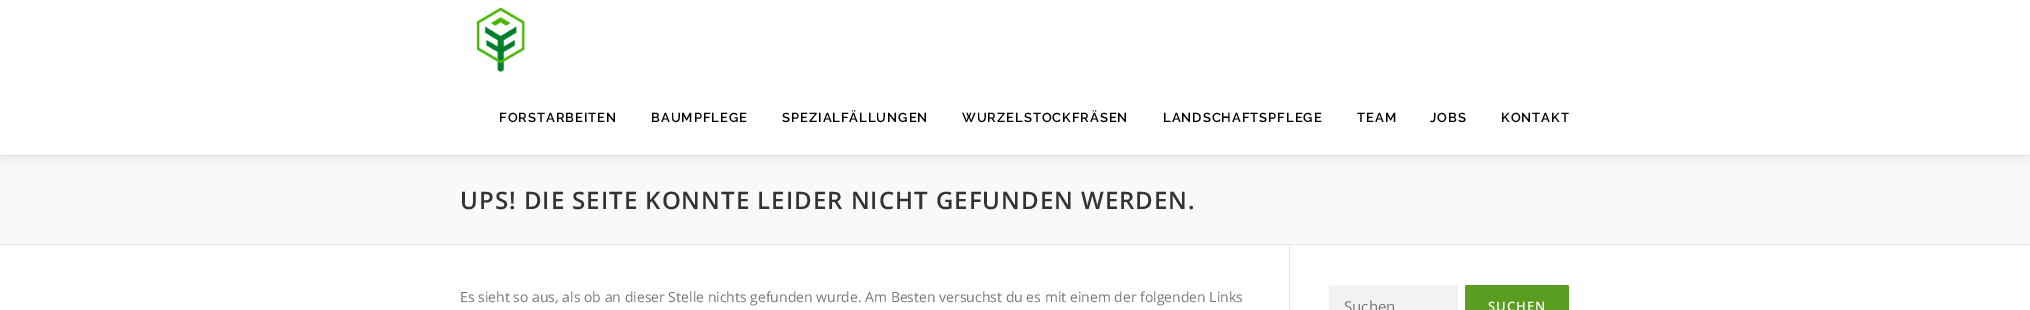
%!PS-Adobe-3.0
%%BoundingBox: 0 0 2030 310
%%LanguageLevel: 3
%%Pages: 1
%%EndComments
%%BeginProlog
/setalpha { dup .setfillconstantalpha .setstrokeconstantalpha } def
/rrect { 5 dict begin { /r /h /w /y /x } { exch def } forall
  x r add y moveto x w add y 2 copy h add r arct x w add y h add x 1 index r arct
  x y h add x y r arct x y 2 copy exch w add exch r arct closepath end } def
/softshadow { 12 dict begin { /a /b /q /h /w /y /x } { exch def } forall gsave /was 0 def
  9 -2 -9 { dup b mul 4 div /e exch def 1 sub .425 mul 2.718 exch exp 1 add a .99 .min exch div /now exch def
    1 1 now sub 1 was sub div sub setalpha /was now def
    w h .min e 2 mul add 0 gt { x e sub y e sub w e 2 mul add h e 2 mul add
      q e add b .6 mul add w h .min 2 div e add .min 0 .max rrect fill } if } for grestore end } def
/drawimage { 5 dict begin { /h /w /y /x /name } { exch def } forall
  gsave x y translate w h scale
  w h 8 [w 0 0 h 0 0] name (r) file false 3 colorimage grestore end } def
%%EndProlog
%%BeginSetup
<< /PageSize [2030 310] /PageUsesTransparency true >> setpagedevice
%%EndSetup
%%Page: 1 1
0 .pushpdf14devicefilter
0 310 translate 1 -1 scale
4 setmiterlimit
1 setgray
0 0 2030 310 rectfill
0.973 0.976 0.976 setrgbcolor
0 156 2030 88 rectfill
0.914 setgray
0 155 2030 1 rectfill
0.196 setgray
0 5 2030 155 0 5 0.06 softshadow
1 setgray
0 1 2030 154 rectfill
(images/1.raw) 476 7 49 65 drawimage
0.914 setgray
0 244 2030 1 rectfill
1289 245 1 65 rectfill
0.949 setgray
1329 285 129 25 rectfill
0.349 0.62 0.129 setrgbcolor
1465 285 104 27 2 rrect fill
/Raleway-SemiBold [13 0 0 -13 0 0] selectfont
0 setgray
499 122 moveto 1 0 (FORSTARBEITEN) ashow
651 122 moveto 1 0 (BAUMPFLEGE) ashow
782 122 moveto 1 0 (SPEZIALFÄLLUNGEN) ashow
962 122 moveto 1 0 (WURZELSTOCKFRÄSEN) ashow
1163 122 moveto 1 0 (LANDSCHAFTSPFLEGE) ashow
1357 122 moveto 1 0 (TEAM) ashow
1430 122 moveto 1 0 (JOBS) ashow
1501 122 moveto 1 0 (KONTAKT) ashow
/OpenSans-SemiBold [24 0 0 -24 0 0] selectfont
0.2 setgray
460 209 moveto 1 0 (UPS! DIE SEITE KONNTE LEIDER NICHT GEFUNDEN WERDEN.) ashow
/OpenSans-Regular [14 0 0 -14 0 0] selectfont
0.467 setgray
460 302 moveto (Es sieht so aus, als ob an dieser Stelle nichts gefunden wurde. Am Besten versuchst du es mit einem der folgenden Links) show
/OpenSans-Regular [15 0 0 -15 0 0] selectfont
1344 312 moveto (Suchen) show
/OpenSans-SemiBold [13 0 0 -13 0 0] selectfont
1 setgray
1488 311 moveto 1 0 (SUCHEN) ashow
.poppdf14devicefilter showpage
%%EOF
